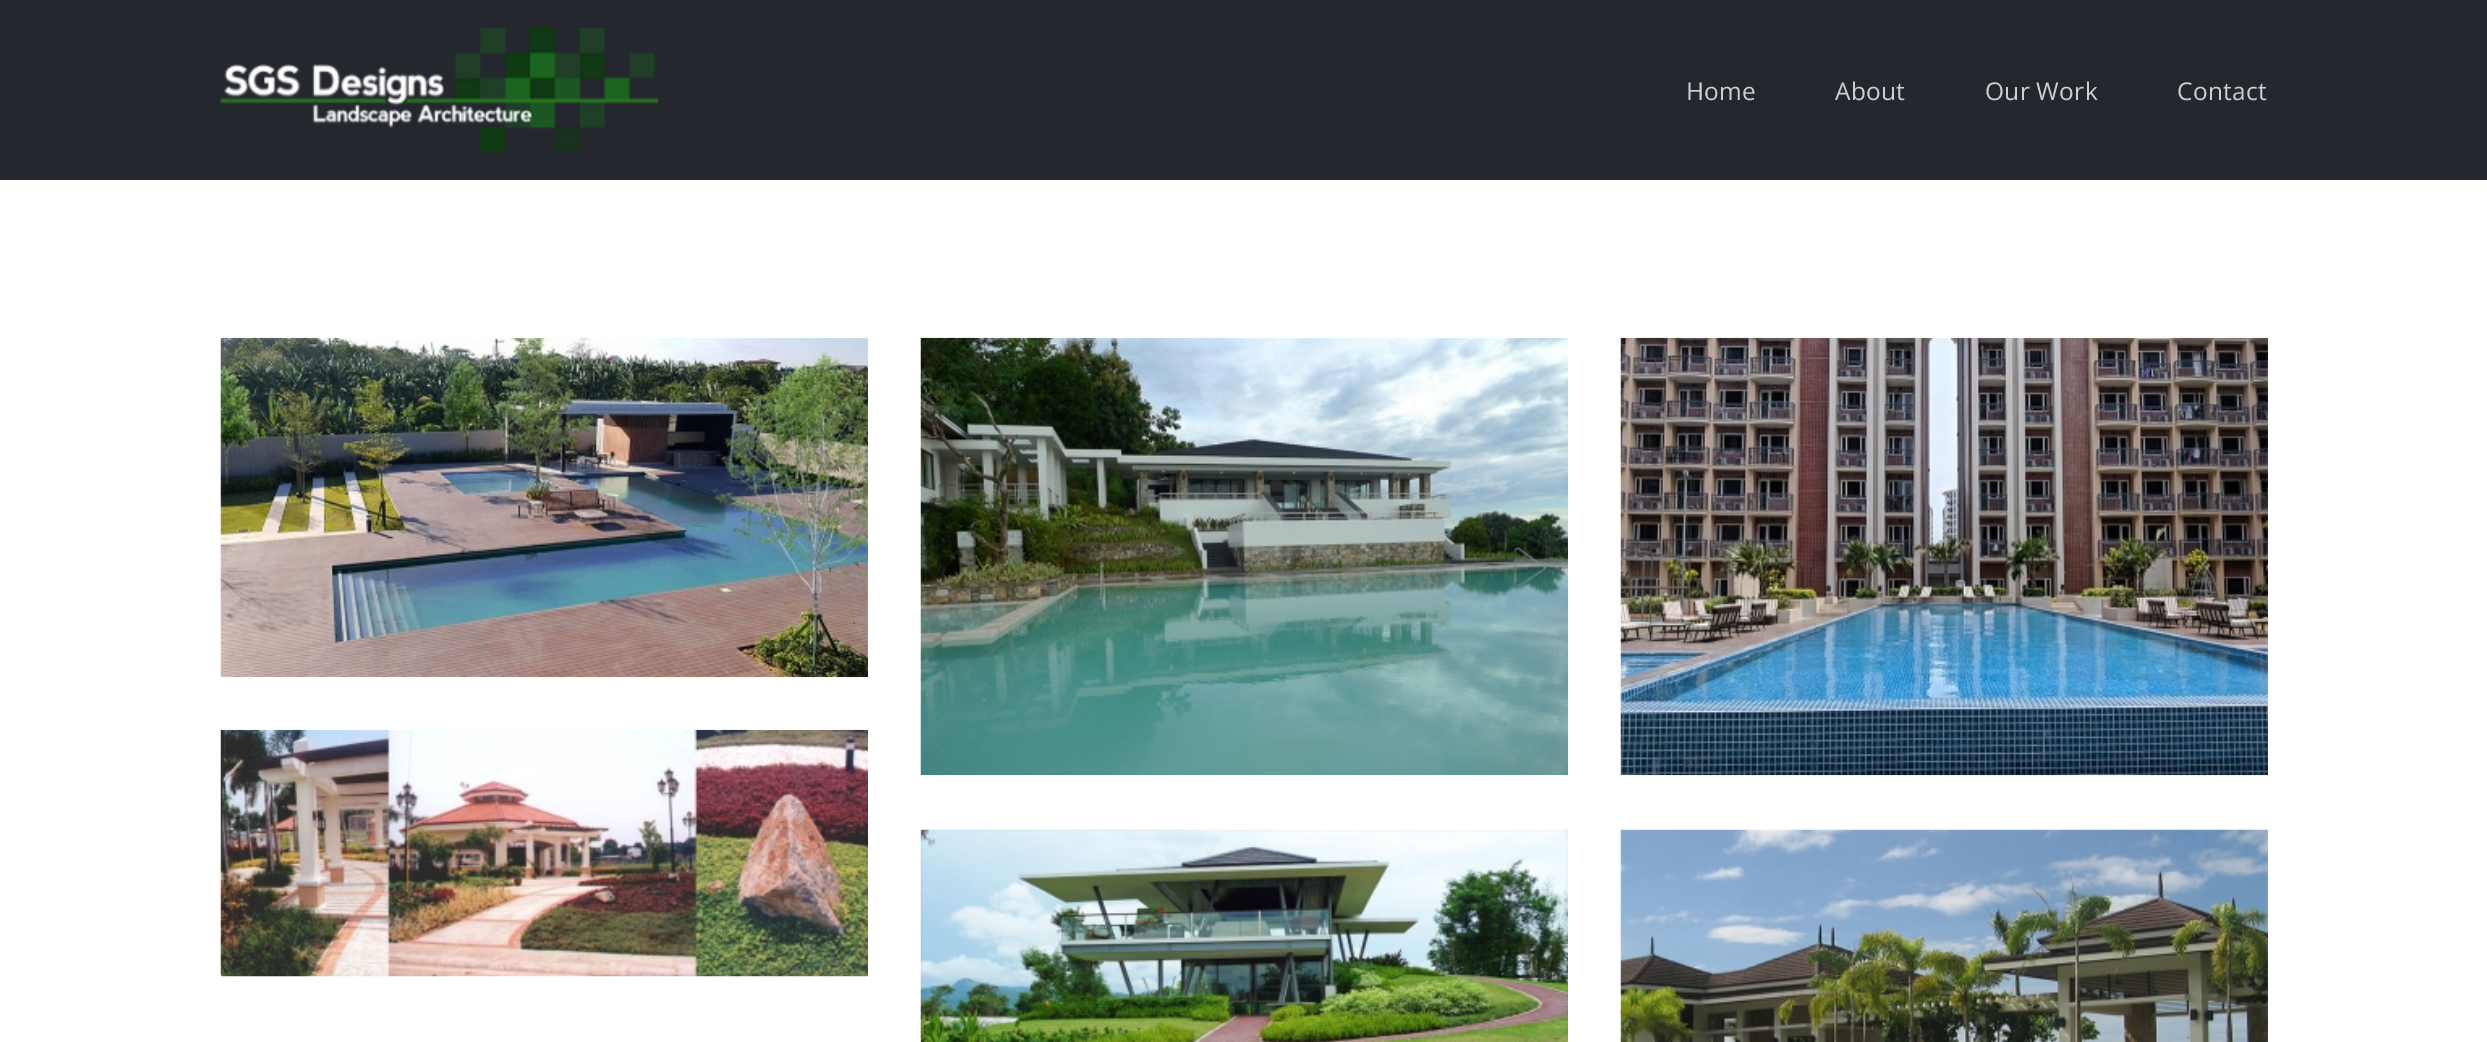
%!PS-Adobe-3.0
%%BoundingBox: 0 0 2487 1042
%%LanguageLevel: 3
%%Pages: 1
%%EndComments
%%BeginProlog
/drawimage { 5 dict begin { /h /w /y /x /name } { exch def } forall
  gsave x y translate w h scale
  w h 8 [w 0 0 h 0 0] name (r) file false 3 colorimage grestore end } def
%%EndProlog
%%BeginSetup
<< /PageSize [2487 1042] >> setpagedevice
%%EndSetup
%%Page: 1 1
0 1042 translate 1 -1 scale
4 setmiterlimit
1 setgray
0 0 2487 1042 rectfill
0.141 0.153 0.176 setrgbcolor
0 0 2487 180 rectfill
(images/1.raw) 220 28 438 125 drawimage
(images/2.raw) 220 337 648 341 drawimage
(images/3.raw) 920 337 648 439 drawimage
(images/4.raw) 1620 337 648 439 drawimage
(images/5.raw) 220 729 648 248 drawimage
(images/6.raw) 920 829 648 213 drawimage
(images/7.raw) 1620 829 648 213 drawimage
/OpenSans-Regular [24.5 0 0 -24.5 0 0] selectfont
0.812 setgray
1686 100 moveto 0.25 0 (Home) ashow
1835 100 moveto 0.25 0 (About) ashow
1985 100 moveto 0.25 0 (Our Work) ashow
2177 100 moveto 0.25 0 (Contact) ashow
showpage
%%EOF
